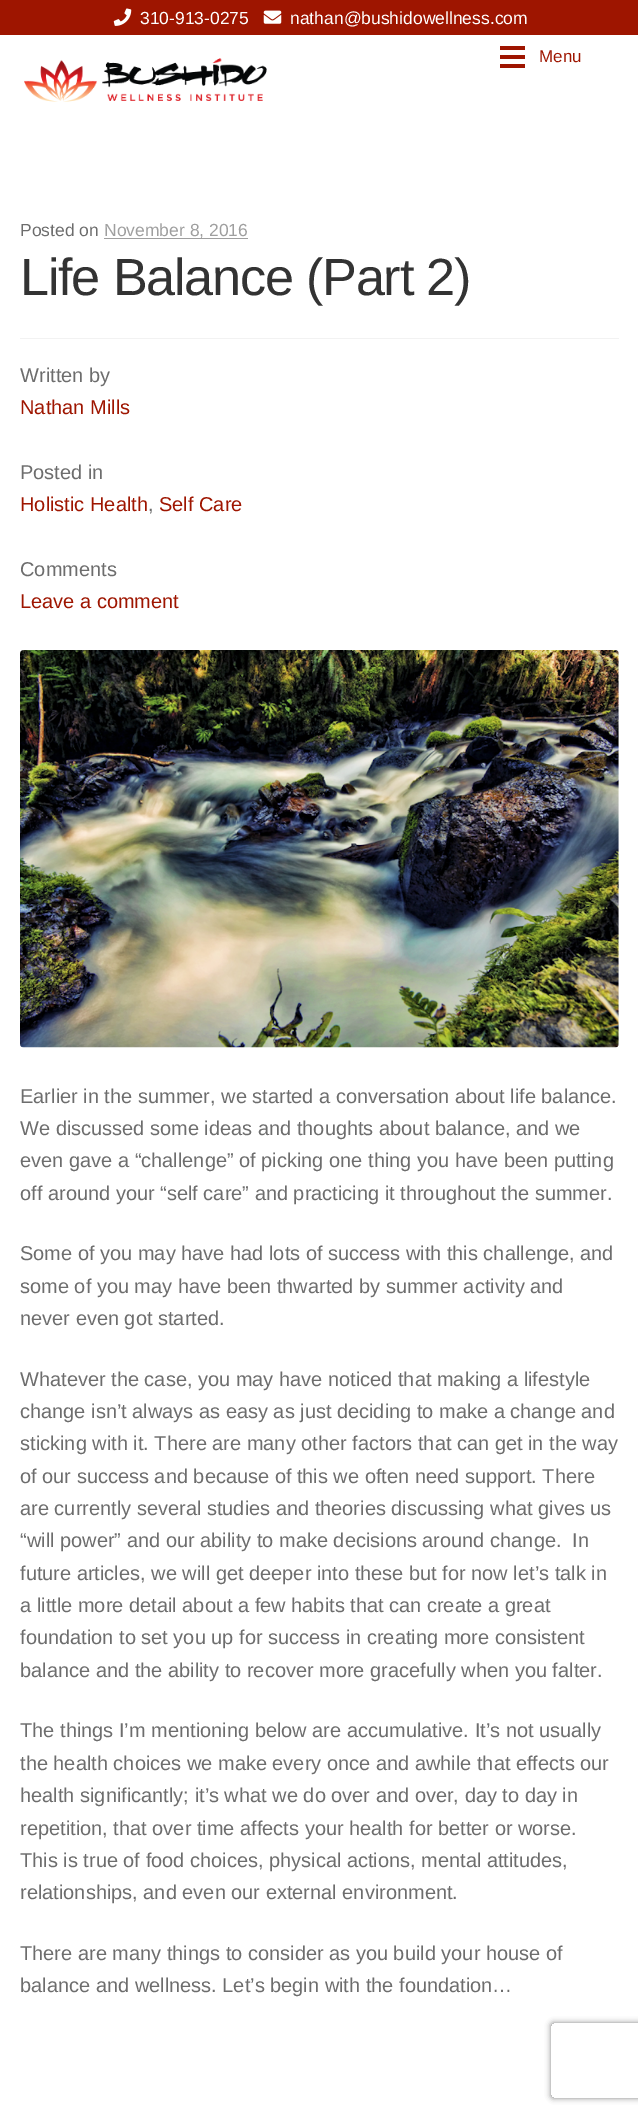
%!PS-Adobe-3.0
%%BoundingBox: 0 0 638 2114
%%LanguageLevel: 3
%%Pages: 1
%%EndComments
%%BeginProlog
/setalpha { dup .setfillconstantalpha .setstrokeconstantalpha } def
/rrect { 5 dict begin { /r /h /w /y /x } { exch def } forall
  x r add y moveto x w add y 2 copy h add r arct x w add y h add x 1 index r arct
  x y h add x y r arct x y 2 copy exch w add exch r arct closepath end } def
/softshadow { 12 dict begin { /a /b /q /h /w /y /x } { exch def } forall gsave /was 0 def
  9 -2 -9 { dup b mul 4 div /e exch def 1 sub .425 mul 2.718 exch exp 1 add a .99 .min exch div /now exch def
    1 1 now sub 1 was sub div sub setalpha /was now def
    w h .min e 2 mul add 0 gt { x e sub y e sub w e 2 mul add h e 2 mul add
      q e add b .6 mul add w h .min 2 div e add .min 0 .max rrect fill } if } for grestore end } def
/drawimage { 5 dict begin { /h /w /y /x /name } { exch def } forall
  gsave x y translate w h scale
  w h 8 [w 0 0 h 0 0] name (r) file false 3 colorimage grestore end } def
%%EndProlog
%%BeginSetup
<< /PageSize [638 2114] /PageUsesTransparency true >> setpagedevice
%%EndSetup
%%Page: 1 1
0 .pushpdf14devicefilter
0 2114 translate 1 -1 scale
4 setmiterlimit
1 setgray
0 0 638 2114 rectfill
0.62 0.082 0 setrgbcolor
0 0 638 35 rectfill
(images/1.raw) 113 8 19 18 drawimage
(images/2.raw) 263 10 19 14 drawimage
500 46 25 4 rectfill
500 55 25 4 rectfill
500 64 25 4 rectfill
(images/3.raw) 24 58 243 44 drawimage
0.949 setgray
20 338 599 1 rectfill
0.624 setgray
104 238 144 1 rectfill
(images/4.raw) 20 650 599 398 drawimage
gsave
newpath 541 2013 moveto 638 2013 lineto 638 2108 lineto 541 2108 lineto closepath 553.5 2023 moveto 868.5 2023 lineto 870 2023 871 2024 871 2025.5 curveto 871 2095.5 lineto 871 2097 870 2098 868.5 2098 curveto 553.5 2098 lineto 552 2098 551 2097 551 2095.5 curveto 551 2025.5 lineto 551 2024 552 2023 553.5 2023 curveto closepath eoclip newpath
0.502 setgray
551 2023 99 75 2.5 3 1 softshadow
grestore
/LiberationSans-Regular [17.5 0 0 -17.5 0 0] selectfont
1 setgray
140 24 moveto (310-913-0275) show
290 24 moveto (nathan@bushidowellness.com) show
/LiberationSans-Regular [17 0 0 -17 0 0] selectfont
0.62 0.082 0 setrgbcolor
539 62 moveto (Menu) show
/LiberationSans-Regular [17.5 0 0 -17.5 0 0] selectfont
0.427 setgray
20 236 moveto (Posted on) show
0.624 setgray
104 236 moveto (November 8, 2016) show
/LiberationSans-Regular [52.25 0 0 -52.25 0 0] selectfont
0.2 setgray
20 295 moveto -1.25 0 (Life Balance \(Part 2\)) ashow
/LiberationSans-Regular [20 0 0 -20 0 0] selectfont
0.427 setgray
20 382 moveto (Written by) show
0.62 0.082 0 setrgbcolor
20 414 moveto (Nathan Mills) show
0.427 setgray
20 479 moveto (Posted in) show
0.62 0.082 0 setrgbcolor
20 511 moveto (Holistic Health) show
0.427 setgray
148 511 moveto (,) show
0.62 0.082 0 setrgbcolor
159 511 moveto (Self Care) show
0.427 setgray
20 576 moveto (Comments) show
0.62 0.082 0 setrgbcolor
20 608 moveto (Leave a comment) show
0.427 setgray
20 1103 moveto (Earlier in the summer, we started a conversation about life balance.) show
20 1135 moveto (We discussed some ideas and thoughts about balance, and we) show
20 1167 moveto (even gave a “challenge” of picking one thing you have been putting) show
20 1200 moveto (off around your “self care” and practicing it throughout the summer.) show
20 1260 moveto (Some of you may have had lots of success with this challenge, and) show
20 1293 moveto (some of you may have been thwarted by summer activity and) show
20 1325 moveto (never even got started.) show
20 1386 moveto (Whatever the case, you may have noticed that making a lifestyle) show
20 1418 moveto (change isn’t always as easy as just deciding to make a change and) show
20 1450 moveto (sticking with it. There are many other factors that can get in the way) show
20 1483 moveto (of our success and because of this we often need support. There) show
20 1515 moveto (are currently several studies and theories discussing what gives us) show
20 1547 moveto (“will power” and our ability to make decisions around change.  In) show
20 1580 moveto (future articles, we will get deeper into these but for now let’s talk in) show
20 1612 moveto (a little more detail about a few habits that can create a great) show
20 1644 moveto (foundation to set you up for success in creating more consistent) show
20 1677 moveto (balance and the ability to recover more gracefully when you falter.) show
20 1737 moveto (The things I’m mentioning below are accumulative. It’s not usually) show
20 1770 moveto (the health choices we make every once and awhile that effects our) show
20 1802 moveto (health significantly; it’s what we do over and over, day to day in) show
20 1835 moveto (repetition, that over time affects your health for better or worse.) show
20 1867 moveto (This is true of food choices, physical actions, mental attitudes,) show
20 1899 moveto (relationships, and even our external environment.) show
20 1960 moveto (There are many things to consider as you build your house of) show
20 1992 moveto (balance and wellness. Let’s begin with the foundation…) show
.poppdf14devicefilter showpage
%%EOF
